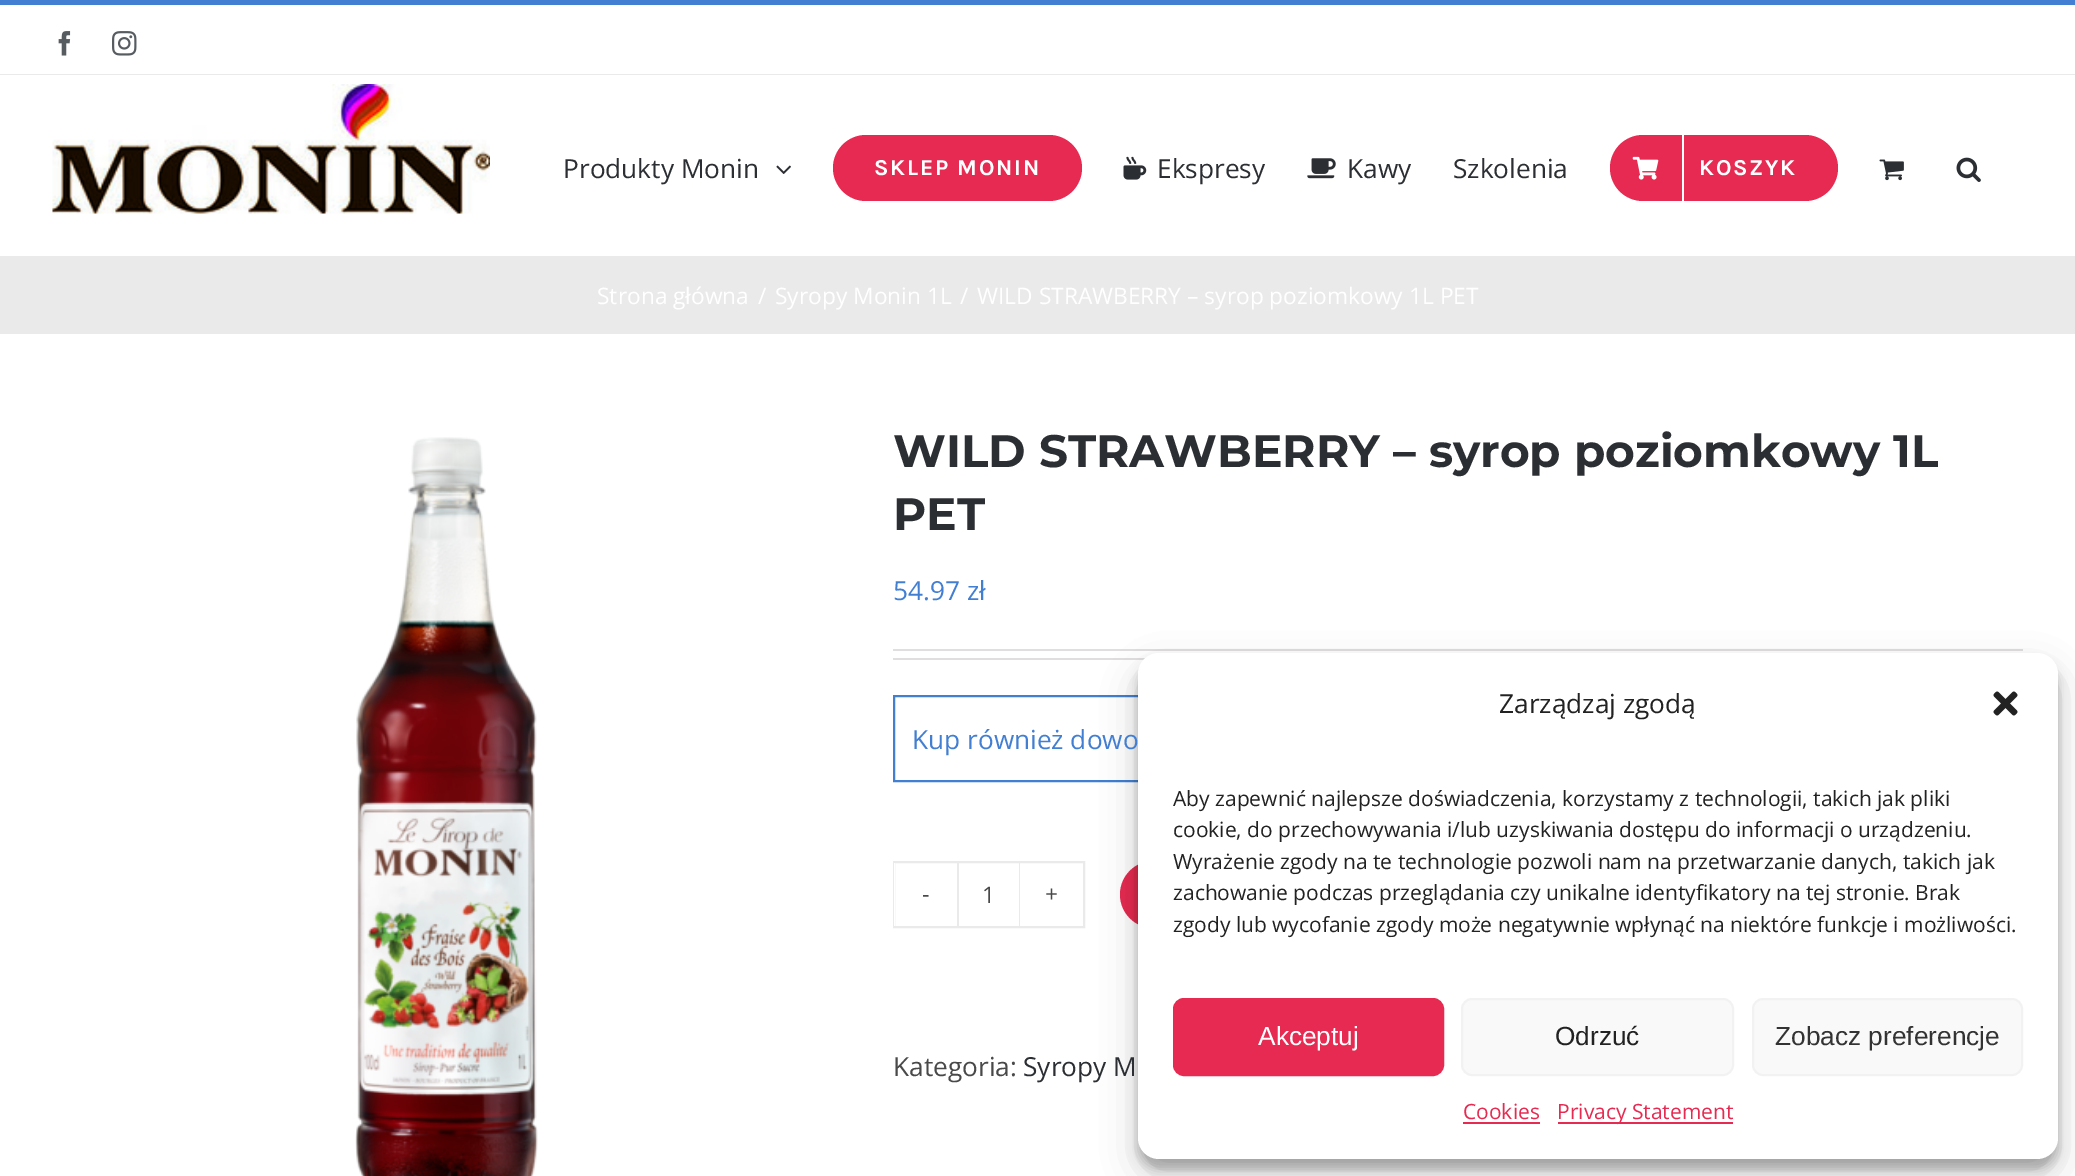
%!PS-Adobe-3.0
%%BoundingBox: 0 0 2075 1176
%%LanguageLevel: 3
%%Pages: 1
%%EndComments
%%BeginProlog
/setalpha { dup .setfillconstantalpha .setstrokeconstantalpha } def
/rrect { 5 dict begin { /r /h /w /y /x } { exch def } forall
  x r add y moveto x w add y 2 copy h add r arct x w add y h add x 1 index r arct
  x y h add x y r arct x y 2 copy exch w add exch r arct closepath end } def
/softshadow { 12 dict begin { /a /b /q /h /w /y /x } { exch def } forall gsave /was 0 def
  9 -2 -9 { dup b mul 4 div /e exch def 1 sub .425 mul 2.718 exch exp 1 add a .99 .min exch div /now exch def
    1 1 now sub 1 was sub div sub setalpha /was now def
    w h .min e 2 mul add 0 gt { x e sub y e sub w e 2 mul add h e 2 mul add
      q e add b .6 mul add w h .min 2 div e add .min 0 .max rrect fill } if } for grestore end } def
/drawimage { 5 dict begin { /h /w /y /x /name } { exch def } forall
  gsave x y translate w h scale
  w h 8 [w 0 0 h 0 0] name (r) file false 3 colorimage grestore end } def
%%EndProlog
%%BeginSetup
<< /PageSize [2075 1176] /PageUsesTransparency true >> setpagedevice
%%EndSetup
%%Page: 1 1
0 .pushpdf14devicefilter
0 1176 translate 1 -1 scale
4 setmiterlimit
1 setgray
0 0 2075 1176 rectfill
0.259 0.494 0.82 setrgbcolor
0 0 2075 5 rectfill
0.918 setgray
0 74 2075 1 rectfill
(images/1.raw) 58 31 13 25 drawimage
(images/2.raw) 112 31 25 25 drawimage
(images/3.raw) 52 84 438 130 drawimage
(images/4.raw) 776 165 15 9 drawimage
0.902 0.165 0.318 setrgbcolor
833 135 249 66 33 rrect fill
(images/5.raw) 1123 156 24 24 drawimage
(images/6.raw) 1307 158 29 21 drawimage
1610 135 228 66 33 rrect fill
1 setgray
1682 135 2 66 rectfill
(images/7.raw) 1632 156 27 24 drawimage
(images/8.raw) 1879 159 25 22 drawimage
(images/9.raw) 1956 157 25 25 drawimage
0.918 setgray
0 256 2075 78 rectfill
(images/10.raw) 355 437 183 739 drawimage
0.878 0.871 0.871 setrgbcolor
893 649 1130 2 rectfill
893 658 253 2 rectfill
0.259 0.494 0.82 setrgbcolor
2 setlinewidth
894 696 1128 85 rectstroke
0.918 setgray
894 862 190 65 rectstroke
1 setgray
894 863 1 63 rectfill
0.918 setgray
1019 863 1 63 rectfill
957 863 2 63 rectfill
0.902 0.165 0.318 setrgbcolor
1120 861 324 67 33.5 rrect fill
0 setgray
1138 663 920 506 21 5 0.23 softshadow
1138 670 920 506 21 17.5 0.19 softshadow
1 setgray
1138 653 920 506 21 rrect fill
(images/11.raw) 1993 691 25 25 drawimage
0.902 0.165 0.318 setrgbcolor
1174 999 269 76 10 rrect gsave fill grestore
stroke
0.976 setgray
1462 999 271 76 10 rrect gsave fill grestore
0.949 setgray
stroke
0.976 setgray
1753 999 269 76 10 rrect gsave fill grestore
0.949 setgray
stroke
0.902 0.165 0.318 setrgbcolor
1463 1122 77 2 rectfill
1558 1122 175 2 rectfill
/OpenSans-Regular [26.25 0 0 -26.25 0 0] selectfont
0.169 0.18 0.196 setrgbcolor
563 178 moveto (Produkty Monin) show
/Karla-Bold [22.75 0 0 -22.75 0 0] selectfont
1 setgray
874 175 moveto 1.75 0 (SKLEP MONIN) ashow
/OpenSans-Regular [26.25 0 0 -26.25 0 0] selectfont
0.169 0.18 0.196 setrgbcolor
1157 178 moveto (Ekspresy) show
1347 178 moveto (Kawy) show
1453 178 moveto (Szkolenia) show
/Karla-Bold [22.75 0 0 -22.75 0 0] selectfont
1 setgray
1699 175 moveto 1.75 0 (KOSZYK) ashow
/OpenSans-Regular [22.75 0 0 -22.75 0 0] selectfont
597 304 moveto (Strona główna) show
758 304 moveto (/) show
775 304 moveto (Syropy Monin 1L) show
960 304 moveto (/) show
977 304 moveto (WILD STRAWBERRY – syrop poziomkowy 1L PET) show
/Montserrat-Thin [45.5 0 0 -45.5 0 0] selectfont
0.169 0.18 0.196 setrgbcolor
893 467 moveto (WILD STRAWBERRY – syrop poziomkowy 1L) show
893 530 moveto (PET) show
/OpenSans-Regular [26.25 0 0 -26.25 0 0] selectfont
0.259 0.494 0.82 setrgbcolor
893 600 moveto (54.97 zł) show
912 749 moveto (Kup również dowo) show
/OpenSans-Regular [22.75 0 0 -22.75 0 0] selectfont
0.286 setgray
922 902 moveto (-) show
982 903 moveto (1) show
1045 902 moveto (+) show
/OpenSans-Regular [26.25 0 0 -26.25 0 0] selectfont
893 1076 moveto (Kategoria:) show
0.169 0.18 0.196 setrgbcolor
1023 1076 moveto (Syropy M) show
0.133 setgray
1499 713 moveto (Zarządzaj zgodą) show
/OpenSans-Regular [21 0 0 -21 0 0] selectfont
1173 806 moveto (Aby zapewnić najlepsze doświadczenia, korzystamy z technologii, takich jak pliki) show
1173 837 moveto (cookie, do przechowywania i/lub uzyskiwania dostępu do informacji o urządzeniu.) show
1173 869 moveto (Wyrażenie zgody na te technologie pozwoli nam na przetwarzanie danych, takich jak) show
1173 900 moveto (zachowanie podczas przeglądania czy unikalne identyfikatory na tej stronie. Brak) show
1173 932 moveto (zgody lub wycofanie zgody może negatywnie wpłynąć na niektóre funkcje i możliwości.) show
/LiberationSans-Regular [26.25 0 0 -26.25 0 0] selectfont
1 setgray
1258 1045 moveto (Akceptuj) show
0.133 setgray
1555 1045 moveto (Odrzuć) show
0.2 setgray
1775 1045 moveto (Zobacz preferencje) show
/OpenSans-Regular [21 0 0 -21 0 0] selectfont
0.902 0.165 0.318 setrgbcolor
1463 1119 moveto (Cookies) show
1557 1119 moveto (Privacy Statement) show
.poppdf14devicefilter showpage
%%EOF
